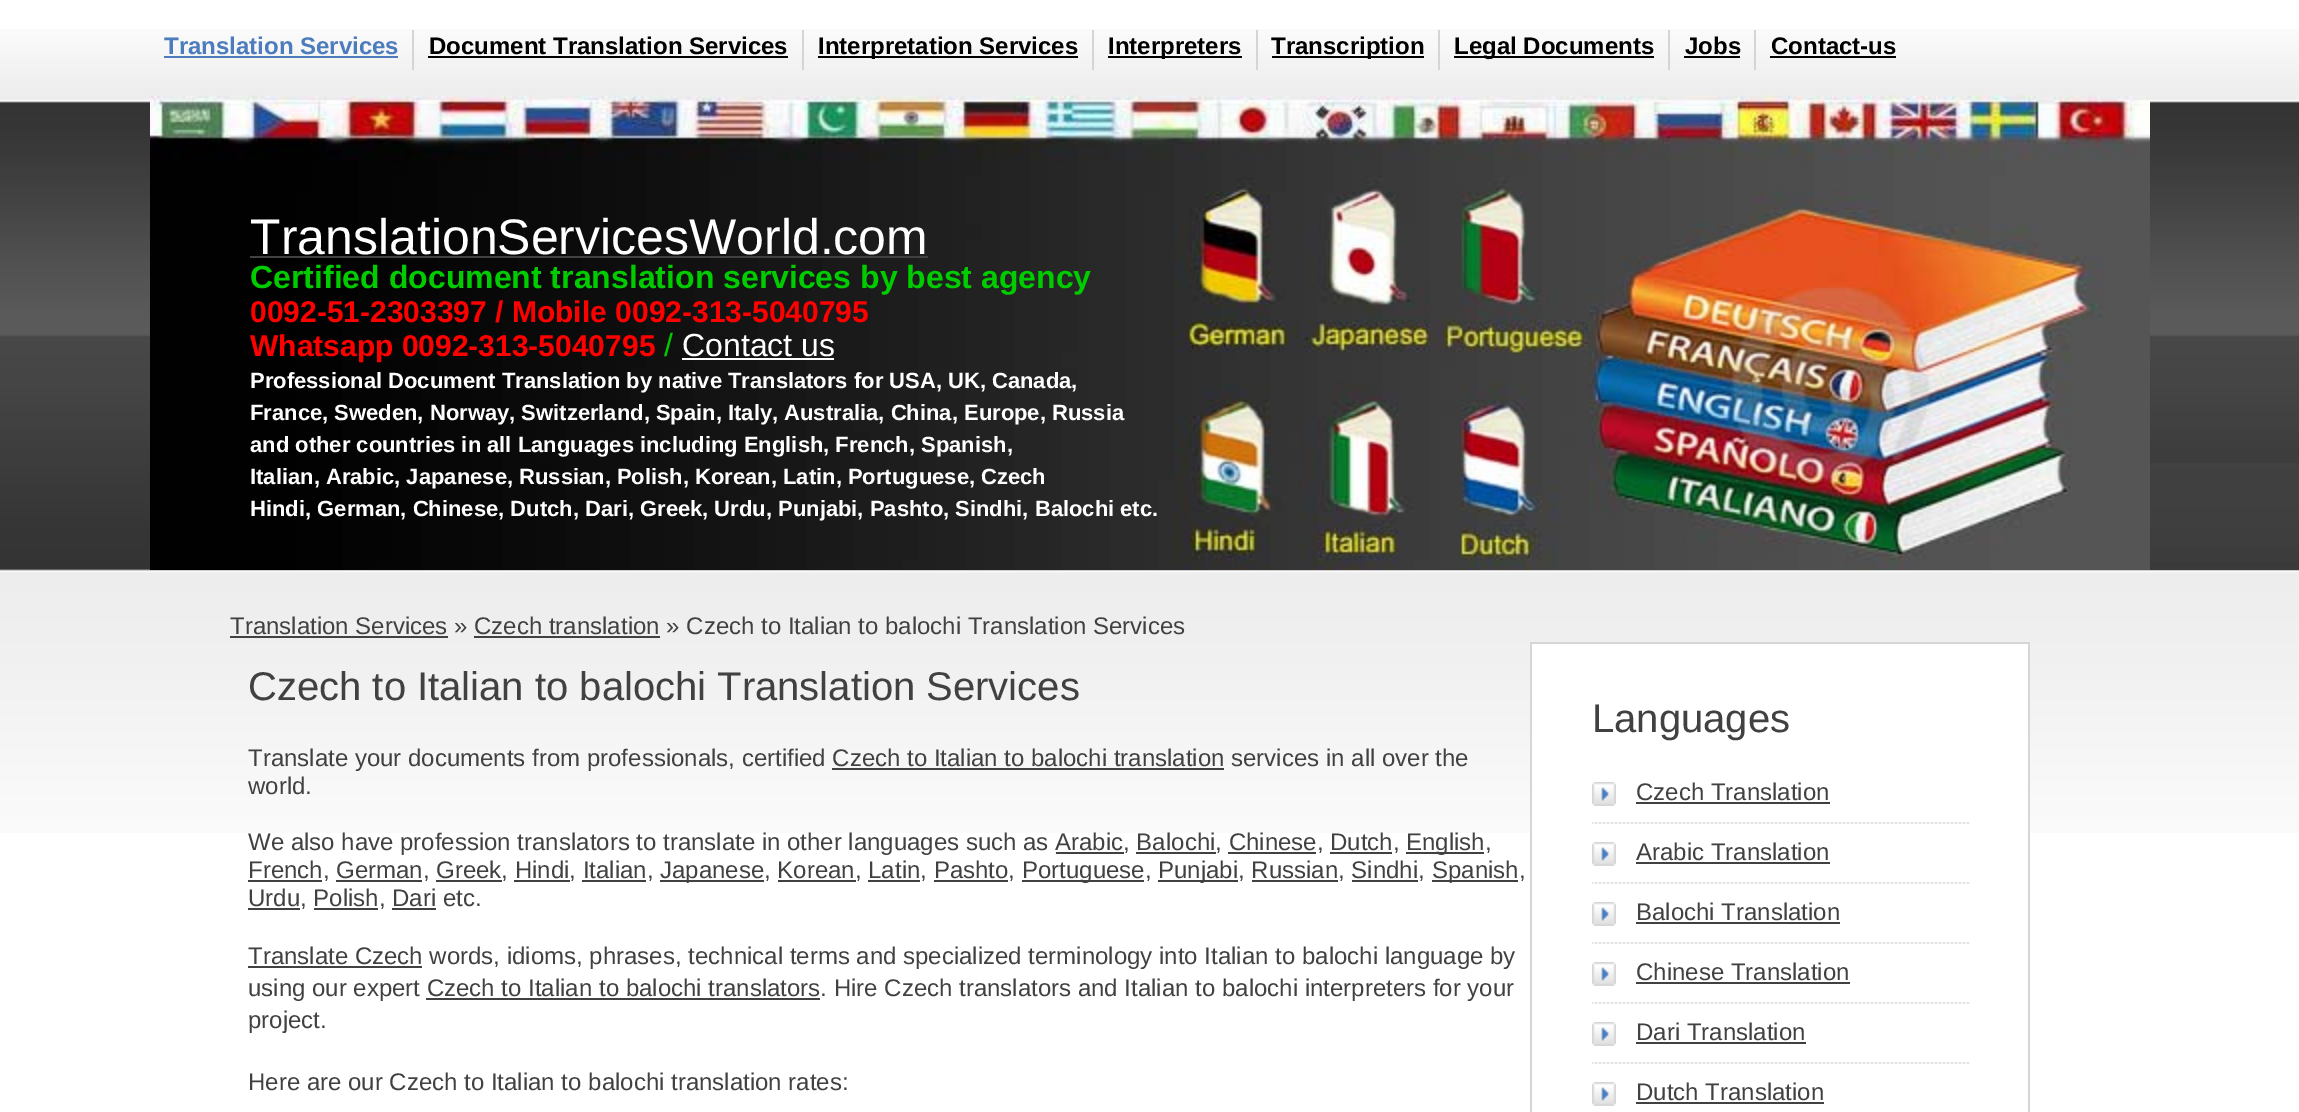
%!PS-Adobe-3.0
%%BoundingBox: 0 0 2299 1112
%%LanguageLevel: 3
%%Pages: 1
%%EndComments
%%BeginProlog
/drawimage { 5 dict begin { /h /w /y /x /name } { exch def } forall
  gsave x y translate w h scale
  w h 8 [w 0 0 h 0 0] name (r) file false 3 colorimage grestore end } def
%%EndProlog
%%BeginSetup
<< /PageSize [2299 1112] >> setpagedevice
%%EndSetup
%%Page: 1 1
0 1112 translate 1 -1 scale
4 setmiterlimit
1 setgray
0 0 2299 1112 rectfill
(images/1.raw) 0 29 2299 804 drawimage
(images/2.raw) 150 94 2000 476 drawimage
0.835 setgray
412 30 2 40 rectfill
0.298 0.486 0.741 setrgbcolor
164 56 234 2 rectfill
0.835 setgray
802 30 2 40 rectfill
0 setgray
428 56 360 2 rectfill
0.835 setgray
1092 30 2 40 rectfill
0 setgray
818 56 260 2 rectfill
0.835 setgray
1256 30 2 40 rectfill
0 setgray
1108 56 134 2 rectfill
0.835 setgray
1438 30 2 40 rectfill
0 setgray
1272 56 152 2 rectfill
0.835 setgray
1668 30 2 40 rectfill
0 setgray
1454 56 200 2 rectfill
0.835 setgray
1754 30 2 40 rectfill
0 setgray
1684 56 56 2 rectfill
1770 56 126 2 rectfill
0.255 setgray
250 256 678 2 rectfill
1 setgray
682 358 152 2 rectfill
0.255 setgray
230 636 218 2 rectfill
474 636 186 2 rectfill
832 768 392 2 rectfill
1406 852 78 2 rectfill
1056 852 68 2 rectfill
1136 852 80 2 rectfill
1228 852 88 2 rectfill
1330 852 62 2 rectfill
248 880 74 2 rectfill
660 880 104 2 rectfill
1022 880 122 2 rectfill
1158 880 80 2 rectfill
1432 880 86 2 rectfill
336 880 86 2 rectfill
436 880 66 2 rectfill
514 880 56 2 rectfill
582 880 64 2 rectfill
778 880 78 2 rectfill
868 880 52 2 rectfill
934 880 74 2 rectfill
1252 880 86 2 rectfill
1352 880 66 2 rectfill
248 908 52 2 rectfill
314 908 64 2 rectfill
392 908 44 2 rectfill
248 966 174 2 rectfill
426 998 394 2 rectfill
1 setgray
1532 644 496 189 rectfill
0.839 setgray
1530 642 500 2 rectfill
2028 644 2 468 rectfill
1530 644 2 468 rectfill
(images/3.raw) 1592 822 378 2 drawimage
(images/4.raw) 1592 782 24 24 drawimage
0.255 setgray
1636 802 194 2 rectfill
(images/3.raw) 1592 882 378 2 drawimage
(images/4.raw) 1592 842 24 24 drawimage
1636 862 194 2 rectfill
(images/3.raw) 1592 942 378 2 drawimage
(images/4.raw) 1592 902 24 24 drawimage
1636 922 204 2 rectfill
(images/3.raw) 1592 1002 378 2 drawimage
(images/4.raw) 1592 962 24 24 drawimage
1636 982 214 2 rectfill
(images/3.raw) 1592 1062 378 2 drawimage
(images/4.raw) 1592 1022 24 24 drawimage
1636 1042 170 2 rectfill
(images/4.raw) 1592 1082 24 24 drawimage
1636 1102 188 2 rectfill
(images/5.raw) 2150 463 149 107 drawimage
/LiberationSans-Bold [24 0 0 -24 0 0] selectfont
0.298 0.486 0.741 setrgbcolor
164 54 moveto (Translation Services) show
0 setgray
429 54 moveto (Document Translation Services) show
818 54 moveto (Interpretation Services) show
1108 54 moveto (Interpreters) show
1271 54 moveto (Transcription) show
1454 54 moveto (Legal Documents) show
1685 54 moveto (Jobs) show
1771 54 moveto (Contact-us) show
/LiberationSans-Regular [50 0 0 -50 0 0] selectfont
1 setgray
250 254 moveto (TranslationServicesWorld.com) show
/LiberationSans-Bold [32 0 0 -32 0 0] selectfont
0 0.8 0 setrgbcolor
250 288 moveto (Certified document translation services by best agency) show
/LiberationSans-Bold [30 0 0 -30 0 0] selectfont
1 0 0 setrgbcolor
250 322 moveto (0092-51-2303397 / Mobile 0092-313-5040795) show
250 356 moveto (Whatsapp 0092-313-5040795) show
/LiberationSans-Regular [32 0 0 -32 0 0] selectfont
0 0.8 0 setrgbcolor
664 356 moveto (/) show
1 setgray
682 356 moveto (Contact us) show
/LiberationSans-Bold [22 0 0 -22 0 0] selectfont
250 388 moveto (Professional Document Translation by native Translators for USA, UK, Canada,) show
250 420 moveto (France, Sweden, Norway, Switzerland, Spain, Italy, Australia, China, Europe, Russia) show
250 452 moveto (and other countries in all Languages including English, French, Spanish,) show
250 484 moveto (Italian, Arabic, Japanese, Russian, Polish, Korean, Latin, Portuguese, Czech) show
250 516 moveto (Hindi, German, Chinese, Dutch, Dari, Greek, Urdu, Punjabi, Pashto, Sindhi, Balochi etc.) show
/LiberationSans-Regular [24 0 0 -24 0 0] selectfont
0.255 setgray
230 634 moveto (Translation Services » Czech translation » Czech to Italian to balochi Translation Services) show
/LiberationSans-Regular [40 0 0 -40 0 0] selectfont
248 700 moveto (Czech to Italian to balochi Translation Services) show
/LiberationSans-Regular [24 0 0 -24 0 0] selectfont
248 766 moveto (Translate your documents from professionals, certified Czech to Italian to balochi translation services in all over the) show
248 794 moveto (world.) show
248 850 moveto (We also have profession translators to translate in other languages such as Arabic, Balochi, Chinese, Dutch,) show
1406 850 moveto (English,) show
248 878 moveto (French, German, Greek, Hindi, Italian,) show
660 878 moveto (Japanese, Korean, Latin, Pashto,) show
1022 878 moveto (Portuguese,) show
1158 878 moveto (Punjabi, Russian, Sindhi,) show
1432 878 moveto (Spanish,) show
248 906 moveto (Urdu, Polish, Dari etc.) show
248 964 moveto (Translate Czech words, idioms, phrases, technical terms and specialized terminology into Italian to balochi language by) show
248 996 moveto (using our expert Czech to Italian to balochi translators. Hire Czech translators and Italian to balochi interpreters for your) show
248 1028 moveto (project.) show
248 1090 moveto (Here are our Czech to Italian to balochi translation rates:) show
/LiberationSans-Regular [40 0 0 -40 0 0] selectfont
1592 732 moveto (Languages) show
/LiberationSans-Regular [24 0 0 -24 0 0] selectfont
1636 800 moveto (Czech Translation) show
1636 860 moveto (Arabic Translation) show
1636 920 moveto (Balochi Translation) show
1636 980 moveto (Chinese Translation) show
1636 1040 moveto (Dari Translation) show
1636 1100 moveto (Dutch Translation) show
showpage
%%EOF
